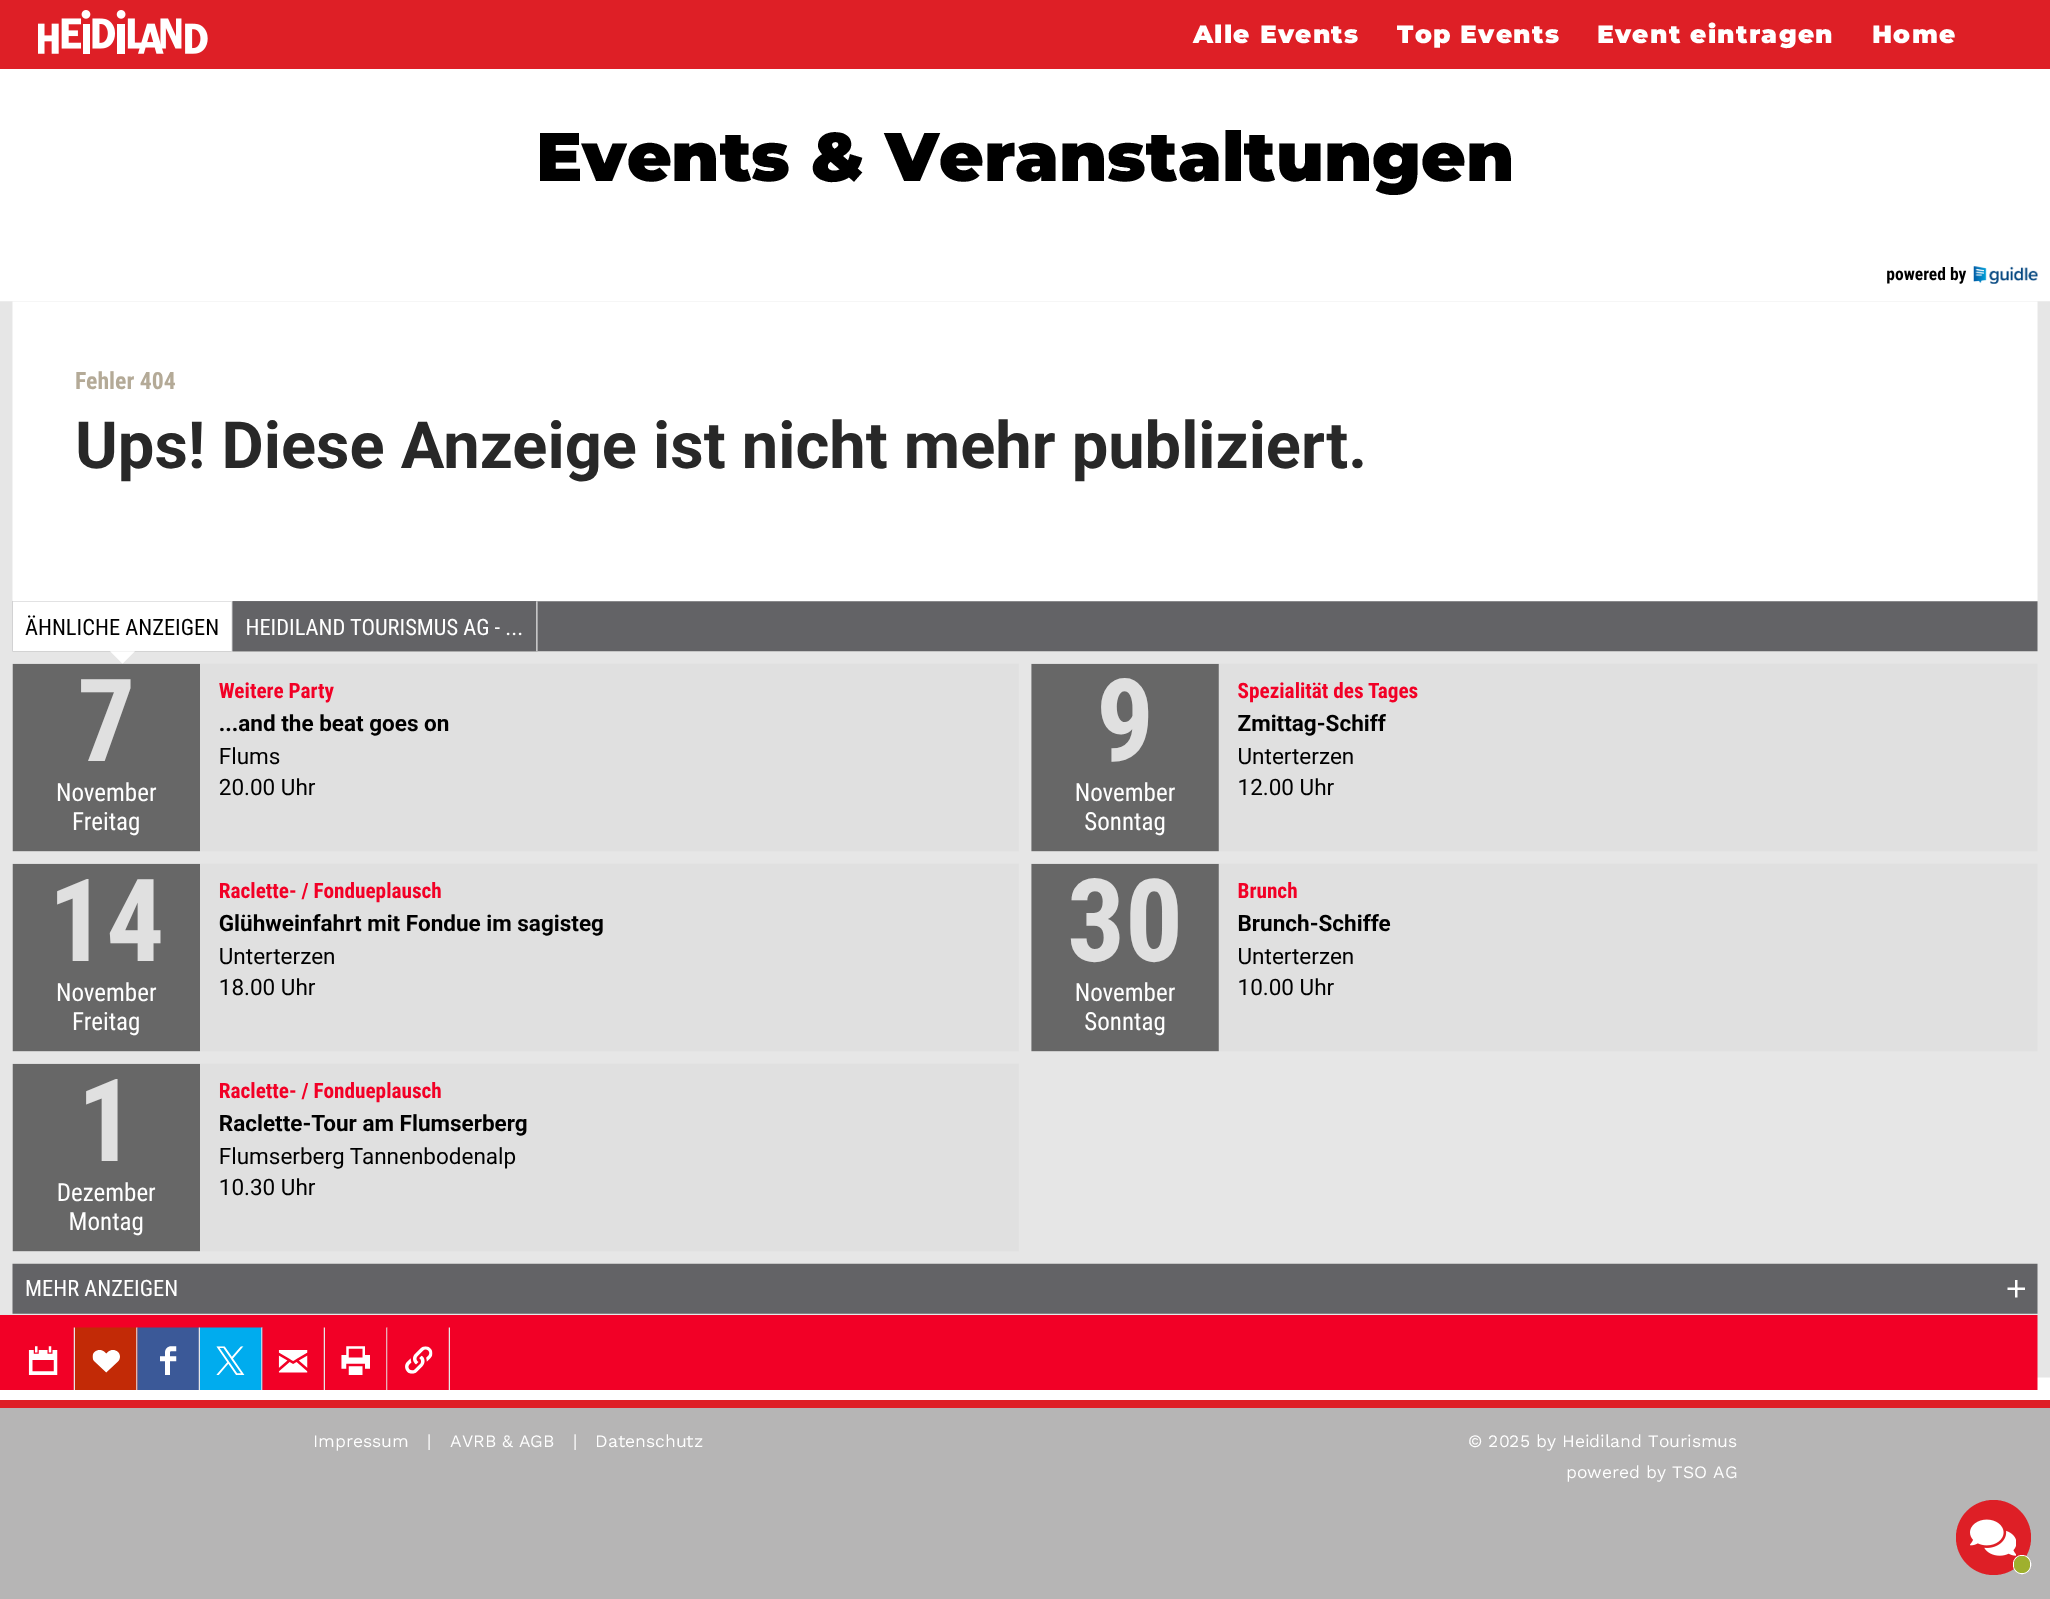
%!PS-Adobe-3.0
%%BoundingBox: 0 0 2050 1599
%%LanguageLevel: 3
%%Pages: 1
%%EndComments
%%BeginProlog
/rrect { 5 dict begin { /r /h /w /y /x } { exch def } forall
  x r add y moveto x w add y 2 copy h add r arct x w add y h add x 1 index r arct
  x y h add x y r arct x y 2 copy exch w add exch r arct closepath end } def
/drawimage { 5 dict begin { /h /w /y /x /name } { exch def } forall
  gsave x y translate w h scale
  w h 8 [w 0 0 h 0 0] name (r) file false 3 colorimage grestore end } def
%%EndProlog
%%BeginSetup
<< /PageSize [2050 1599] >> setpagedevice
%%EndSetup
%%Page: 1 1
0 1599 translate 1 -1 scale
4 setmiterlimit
1 setgray
0 0 2050 1599 rectfill
0.871 0.122 0.149 setrgbcolor
0 0 2050 69 rectfill
(images/1.raw) 38 10 170 44 drawimage
(images/2.raw) 0 266 2050 1124 drawimage
0 1400 2050 8 rectfill
0.714 0.71 0.71 setrgbcolor
0 1408 2050 191 rectfill
0.871 0.122 0.149 setrgbcolor
newpath 1993.5 1537.5 37.5 0 360 arc closepath fill
(images/3.raw) 1970 1519 46 37 drawimage
1 setgray
2013.5 1555.5 17 18 8.5 rrect stroke
0.624 0.69 0.18 setrgbcolor
2014 1556 16 17 8 rrect fill
/Montserrat-Thin [25 0 0 -25 0 0] selectfont
1 setgray
1193 43 moveto 1.25 0 (Alle Events) ashow
1397 43 moveto 1.25 0 (Top Events) ashow
1597 43 moveto 1.25 0 (Event eintragen) ashow
1872 43 moveto 1.25 0 (Home) ashow
/Montserrat-Thin [68.75 0 0 -68.75 0 0] selectfont
0 setgray
536 181 moveto (Events & Veranstaltungen) show
/WorkSans-Regular [17.5 0 0 -17.5 0 0] selectfont
1 setgray
313 1447 moveto (Impressum) show
427 1447 moveto (|) show
450 1447 moveto (AVRB & AGB) show
573 1447 moveto (|) show
595 1447 moveto (Datenschutz) show
1468 1447 moveto (© 2025 by Heidiland Tourismus) show
1566 1478 moveto (powered by TSO AG) show
showpage
%%EOF
